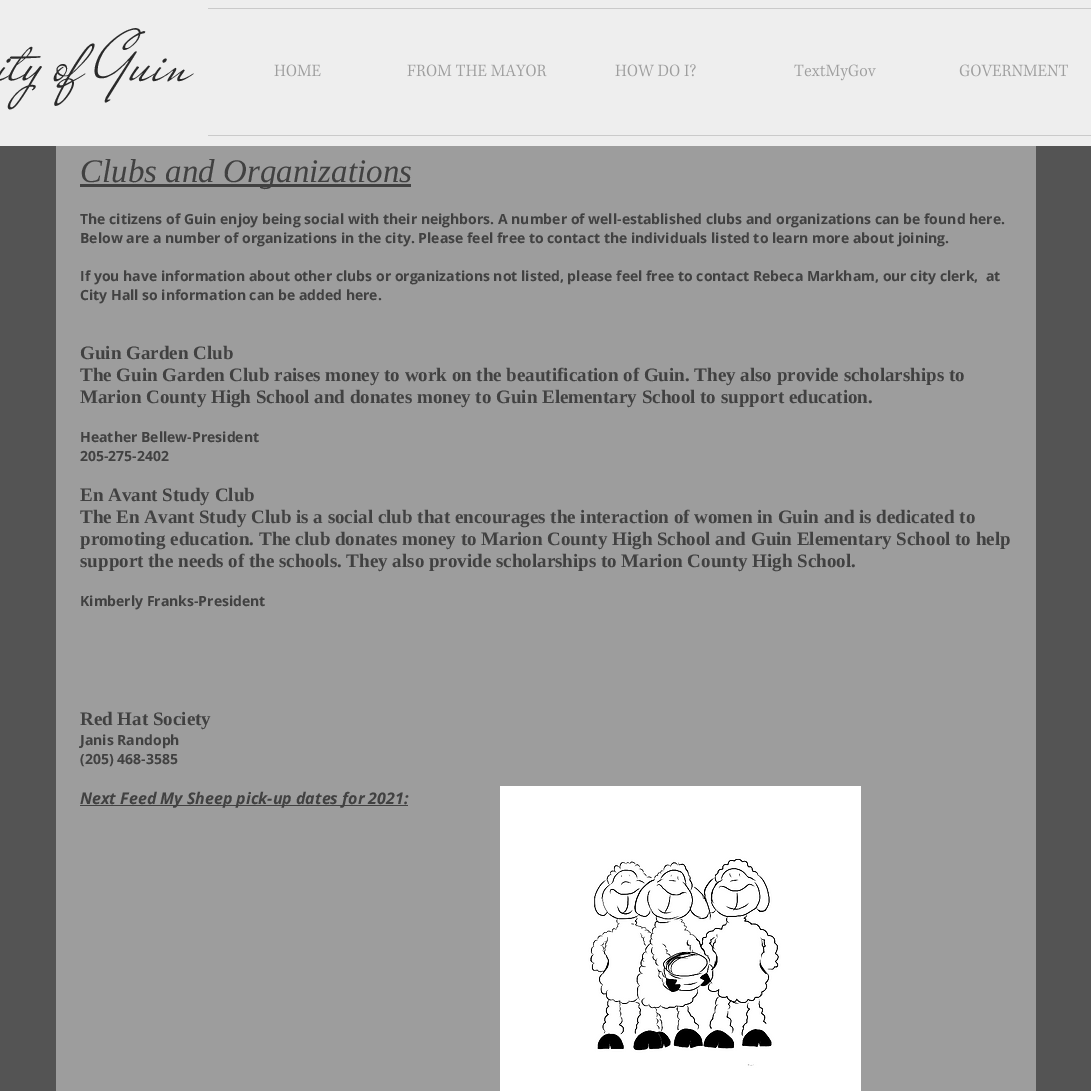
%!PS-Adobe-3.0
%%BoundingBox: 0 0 1091 1091
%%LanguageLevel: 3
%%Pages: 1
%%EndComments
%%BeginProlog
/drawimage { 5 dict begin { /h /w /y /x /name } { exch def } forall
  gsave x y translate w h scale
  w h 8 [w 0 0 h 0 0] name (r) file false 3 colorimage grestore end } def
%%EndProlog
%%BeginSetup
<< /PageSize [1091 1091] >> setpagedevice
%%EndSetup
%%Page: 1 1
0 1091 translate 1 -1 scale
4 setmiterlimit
0.329 setgray
0 0 1091 1091 rectfill
0.933 setgray
0 0 1091 146 rectfill
0.792 setgray
208 8 883 1 rectfill
208 135 883 1 rectfill
(images/1.raw) 274 64 47 13 drawimage
(images/2.raw) 407 64 140 13 drawimage
(images/3.raw) 615 64 81 13 drawimage
(images/4.raw) 794 64 82 17 drawimage
(images/5.raw) 959 64 109 13 drawimage
0.616 setgray
56 146 980 945 rectfill
0.255 setgray
80 184 331 3 rectfill
80 805 328 1 rectfill
(images/6.raw) 500 786 361 305 drawimage
/MrDeHaviland-Regular [71 0 0 -71 0 0] selectfont
0.165 setgray
-3 80 moveto (ity of Guin) show
/LiberationSerif-Italic [33 0 0 -33 0 0] selectfont
0.255 setgray
80 182 moveto (Clubs and Organizations) show
/OpenSans-Bold [14 0 0 -14 0 0] selectfont
80 224 moveto (The citizens of Guin enjoy being social with their neighbors. A number of well-established clubs and organizations can be found here.) show
80 243 moveto (Below are a number of organizations in the city. Please feel free to contact the individuals listed to learn more about joining.) show
80 281 moveto (If you have information about other clubs or organizations not listed, please feel free to contact Rebeca Markham, our city clerk,  at) show
80 300 moveto (City Hall so information can be added here.) show
/LiberationSerif-Bold [19 0 0 -19 0 0] selectfont
80 359 moveto (Guin Garden Club) show
80 381 moveto (The Guin Garden Club raises money to work on the beautification of Guin. They also provide scholarships to) show
80 403 moveto (Marion County High School and donates money to Guin Elementary School to support education.) show
/OpenSans-Bold [14 0 0 -14 0 0] selectfont
80 442 moveto (Heather Bellew-President) show
80 461 moveto (205-275-2402) show
/LiberationSerif-Bold [19 0 0 -19 0 0] selectfont
80 501 moveto (En Avant Study Club) show
80 523 moveto (The En Avant Study Club is a social club that encourages the interaction of women in Guin and is dedicated to) show
80 545 moveto (promoting education. The club donates money to Marion County High School and Guin Elementary School to help) show
80 567 moveto (support the needs of the schools. They also provide scholarships to Marion County High School.) show
/OpenSans-Bold [14 0 0 -14 0 0] selectfont
80 606 moveto (Kimberly Franks-President) show
/LiberationSerif-Bold [19 0 0 -19 0 0] selectfont
80 725 moveto (Red Hat Society) show
/OpenSans-Bold [14 0 0 -14 0 0] selectfont
80 745 moveto (Janis Randoph) show
80 764 moveto (\(205\) 468-3585) show
/OpenSans-BoldItalic [16 0 0 -16 0 0] selectfont
80 804 moveto (Next Feed My Sheep pick-up dates for 2021:) show
showpage
%%EOF
